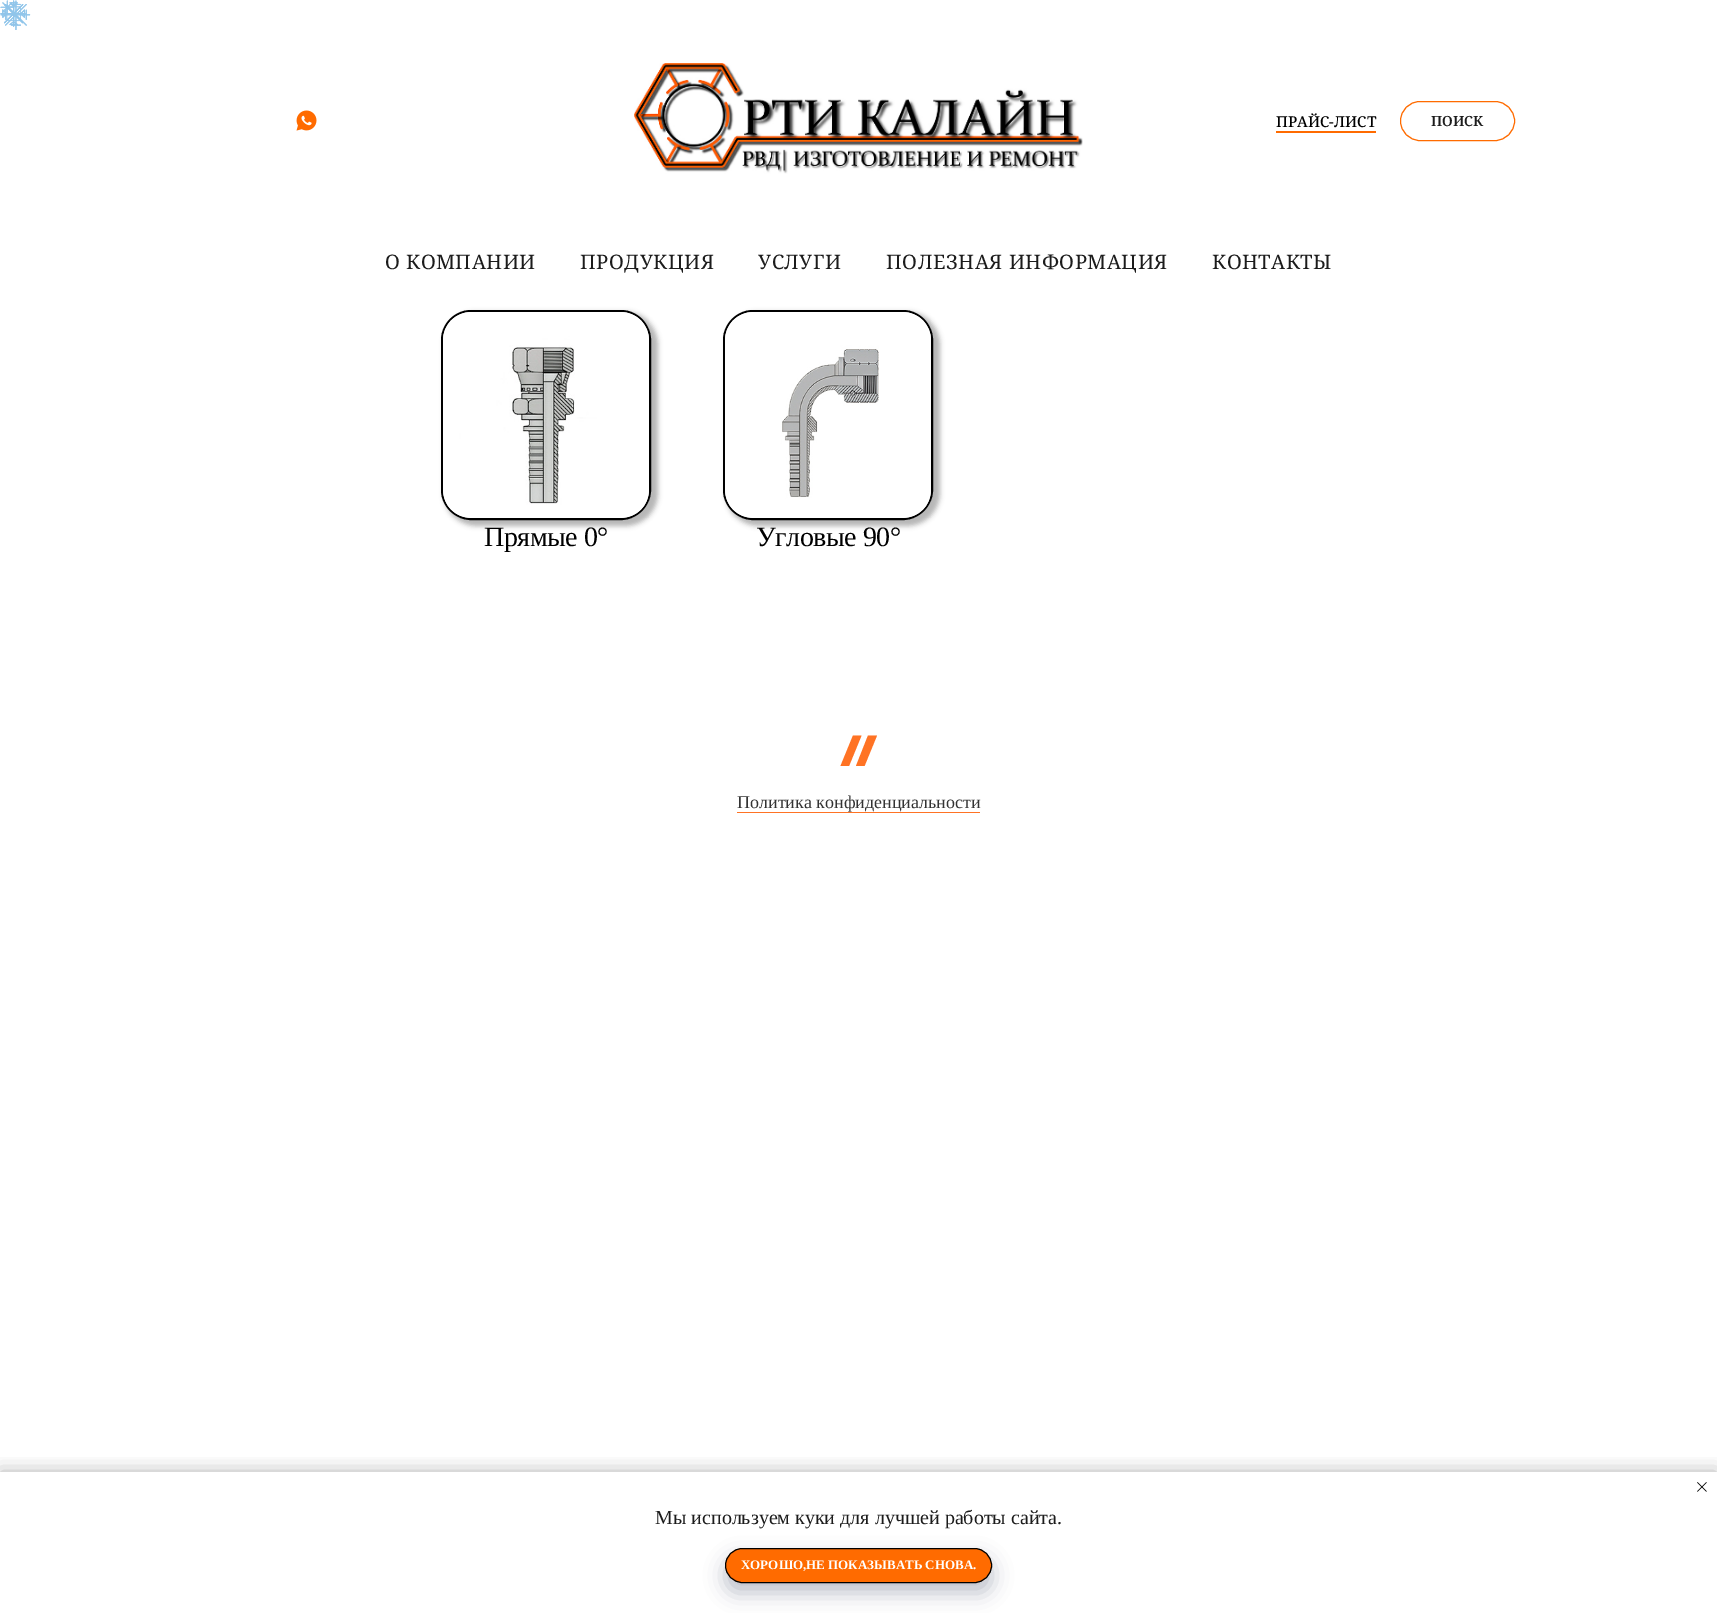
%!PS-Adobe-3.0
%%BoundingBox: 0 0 1717 1613
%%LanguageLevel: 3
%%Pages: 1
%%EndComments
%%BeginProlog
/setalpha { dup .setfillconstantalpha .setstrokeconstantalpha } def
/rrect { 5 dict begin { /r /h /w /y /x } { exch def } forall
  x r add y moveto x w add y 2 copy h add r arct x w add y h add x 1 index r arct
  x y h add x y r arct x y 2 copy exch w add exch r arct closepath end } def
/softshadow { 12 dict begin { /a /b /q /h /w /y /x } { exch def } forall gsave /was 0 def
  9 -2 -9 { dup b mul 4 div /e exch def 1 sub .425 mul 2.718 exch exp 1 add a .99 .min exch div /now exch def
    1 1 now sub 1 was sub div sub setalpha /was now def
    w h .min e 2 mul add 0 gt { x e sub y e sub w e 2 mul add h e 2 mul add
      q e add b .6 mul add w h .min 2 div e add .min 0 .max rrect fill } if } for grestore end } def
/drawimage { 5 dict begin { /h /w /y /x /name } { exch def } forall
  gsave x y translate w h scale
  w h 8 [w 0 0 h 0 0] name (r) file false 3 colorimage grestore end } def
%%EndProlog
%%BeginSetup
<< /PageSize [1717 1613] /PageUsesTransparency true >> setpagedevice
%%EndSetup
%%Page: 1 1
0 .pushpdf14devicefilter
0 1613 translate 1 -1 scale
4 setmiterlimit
1 setgray
0 0 1717 1613 rectfill
(images/1.raw) 0 0 30 30 drawimage
(images/31.raw) 1 4 29 22 drawimage
(images/2.raw) 0 0 27 27 drawimage
(images/26.raw) 1 1 29 29 drawimage
(images/3.raw) 0 0 27 27 drawimage
(images/4.raw) 0 0 27 27 drawimage
(images/5.raw) 0 0 30 30 drawimage
(images/30.raw) 3 3 22 22 drawimage
(images/6.raw) 0 0 14 14 drawimage
(images/7.raw) 0 0 27 27 drawimage
(images/8.raw) 0 0 30 30 drawimage
(images/9.raw) 0 0 27 27 drawimage
(images/10.raw) 0 0 14 14 drawimage
(images/11.raw) 0 0 13 13 drawimage
(images/28.raw) 2 2 23 23 drawimage
(images/12.raw) 0 0 31 30 drawimage
(images/13.raw) 0 0 26 27 drawimage
(images/14.raw) 0 0 13 13 drawimage
(images/15.raw) 0 0 25 27 drawimage
(images/27.raw) 5 1 25 29 drawimage
(images/16.raw) 0 0 31 30 drawimage
(images/17.raw) 0 0 25 27 drawimage
(images/18.raw) 0 0 25 27 drawimage
(images/19.raw) 0 0 30 30 drawimage
(images/20.raw) 0 0 24 24 drawimage
(images/21.raw) 0 0 13 13 drawimage
(images/22.raw) 0 0 25 25 drawimage
(images/29.raw) 2 2 23 23 drawimage
(images/23.raw) 0 0 31 30 drawimage
(images/24.raw) 0 0 10 10 drawimage
(images/25.raw) 0 0 10 10 drawimage
(images/32.raw) 4 6 17 18 drawimage
(images/33.raw) 634 63 449 111 drawimage
(images/34.raw) 296 110 21 21 drawimage
1 0.42 0 setrgbcolor
1276 131 100 2 rectfill
1400.5 101.5 114 39 19.5 rrect stroke
gsave
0 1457 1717 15 rectclip
0 setgray
0 1472 1717 141 0 10 0.3 softshadow
grestore
(images/35.raw) 1697 1482 10 10 drawimage
0 0.043 0.188 setrgbcolor
725 1558 267 35 17.5 10 0.25 softshadow
1 0.42 0 setrgbcolor
725.5 1548.5 266 34 17 rrect gsave fill grestore
0 setgray
stroke
0.294 setgray
444 312 214 214 32 2.5 0.4 softshadow
0 setgray
2 setlinewidth
442 311 208 208 29 rrect stroke
(images/36.raw) 443 312 206 206 drawimage
0.294 setgray
726 312 214 214 32 2.5 0.4 softshadow
0 setgray
724 311 208 208 29 rrect stroke
(images/37.raw) 725 312 206 206 drawimage
1 0.451 0.141 setrgbcolor
newpath 849 766 moveto 840.5 766 lineto 853 735.5 lineto 861.5 735.5 lineto closepath eofill
newpath 864.5 766 moveto 856 766 lineto 868 735.5 lineto 877 735.5 lineto closepath eofill
737 812 243 1 rectfill
/NotoSerif-Medium [15 0 0 -15 0 0] selectfont
0 setgray
1276 127 moveto (ПРАЙС-ЛИСТ) show
/NotoSerif-SemiBold [14 0 0 -14 0 0] selectfont
0.11 setgray
1431 126 moveto (ПОИСК) show
/NotoSerif-Regular [20 0 0 -20 0 0] selectfont
385 269 moveto 0.5 0 (О КОМПАНИИ) ashow
580 269 moveto 0.5 0 (ПРОДУКЦИЯ) ashow
758 269 moveto 0.5 0 (УСЛУГИ) ashow
886 269 moveto 0.5 0 (ПОЛЕЗНАЯ ИНФОРМАЦИЯ) ashow
1212 269 moveto 0.5 0 (КОНТАКТЫ) ashow
/LiberationSerif-Regular [20 0 0 -20 0 0] selectfont
655 1524 moveto (Мы используем куки для лучшей работы сайта.) show
/LiberationSerif-Bold [13 0 0 -13 0 0] selectfont
1 setgray
741 1569 moveto (ХОРОШО,НЕ ПОКАЗЫВАТЬ СНОВА.) show
/LiberationSerif-Regular [28 0 0 -28 0 0] selectfont
0 setgray
484 546 moveto -0.5 0 (Прямые 0°) ashow
756 546 moveto -0.5 0 (Угловые 90°) ashow
/LiberationSerif-Regular [18 0 0 -18 0 0] selectfont
0.2 setgray
737 808 moveto (Политика конфиденциальности) show
.poppdf14devicefilter showpage
%%EOF
